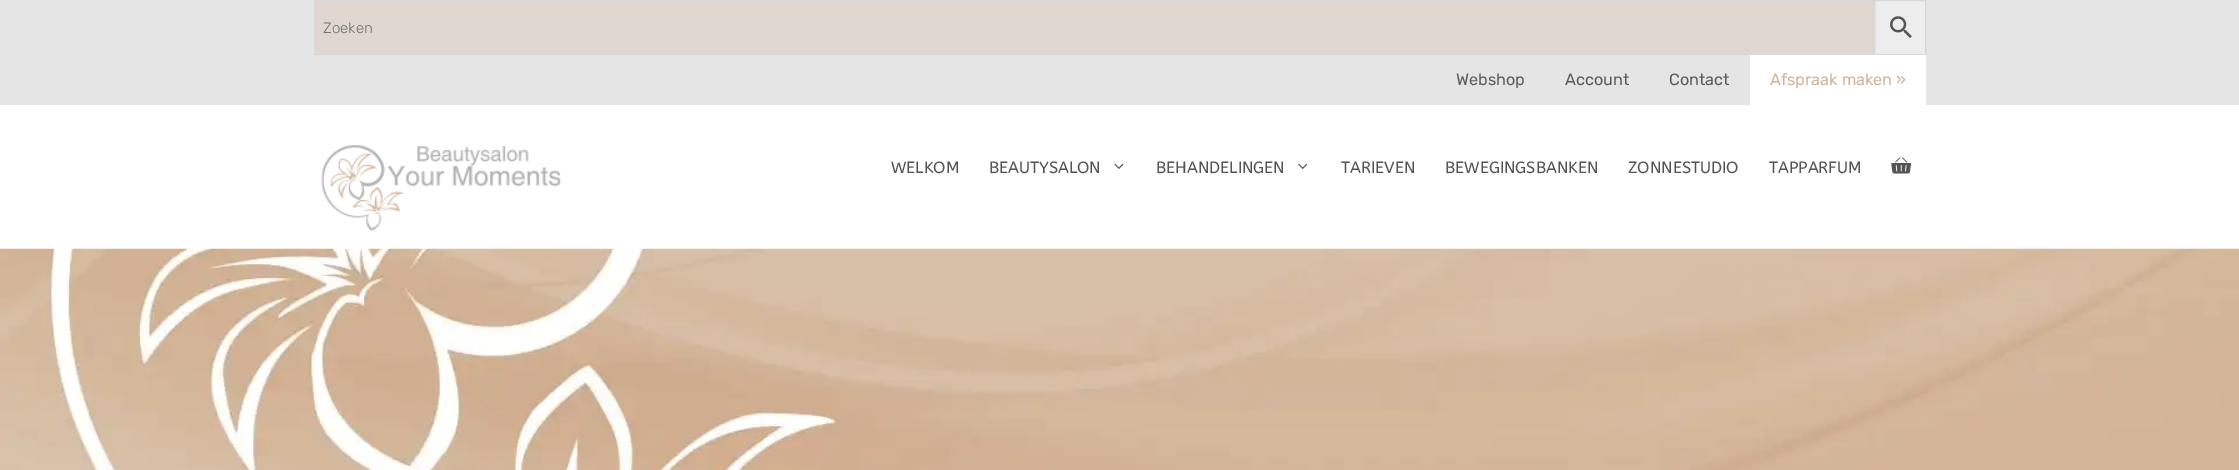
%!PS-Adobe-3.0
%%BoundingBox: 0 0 2239 470
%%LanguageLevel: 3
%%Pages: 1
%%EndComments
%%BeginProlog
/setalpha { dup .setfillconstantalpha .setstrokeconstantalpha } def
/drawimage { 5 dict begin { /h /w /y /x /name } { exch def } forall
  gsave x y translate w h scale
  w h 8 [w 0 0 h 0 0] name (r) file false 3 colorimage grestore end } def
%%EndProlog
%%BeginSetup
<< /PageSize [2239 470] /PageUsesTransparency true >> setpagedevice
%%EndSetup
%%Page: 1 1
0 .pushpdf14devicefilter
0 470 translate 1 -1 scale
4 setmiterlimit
1 setgray
0 0 2239 470 rectfill
0.898 setgray
0 0 2239 105 rectfill
0.929 setgray
newpath 1874.5 0.5 moveto 1925.5 0.5 lineto 1925.5 54.5 lineto 1874.5 54.5 lineto closepath gsave fill grestore
0.847 setgray
stroke
0.27 setalpha
0.812 0.698 0.588 setrgbcolor
newpath 314.5 0.5 moveto 1874.5 0.5 lineto 1874.5 54.5 lineto 314.5 54.5 lineto closepath fill
1 setalpha
0.847 setgray
newpath 314.5 0.5 moveto 1874.5 0.5 lineto 1874.5 54.5 lineto 314.5 54.5 lineto closepath stroke
(images/1.raw) 1890 16 22 22 drawimage
1 setgray
1750 55 176 50 rectfill
(images/2.raw) 321 144 240 88 drawimage
(images/3.raw) 1114 163 10 6 drawimage
(images/4.raw) 1298 163 10 6 drawimage
(images/5.raw) 1891 157 21 17 drawimage
(images/6.raw) 0 248 2239 222 drawimage
/Rubik-Light [15 0 0 -15 0 0] selectfont
0.459 setgray
323 33 moveto (Zoeken) show
/Rubik-Regular [16.25 0 0 -16.25 0 0] selectfont
0.357 setgray
1456 85 moveto (Webshop) show
1565 85 moveto (Account) show
1669 85 moveto (Contact) show
0.812 0.698 0.588 setrgbcolor
1770 85 moveto (Afspraak maken ») show
/ABeeZee-Regular [16.25 0 0 -16.25 0 0] selectfont
0.329 setgray
891 173 moveto (WELKOM) show
989 173 moveto (BEAUTYSALON) show
1156 173 moveto (BEHANDELINGEN) show
1341 173 moveto (TARIEVEN) show
1445 173 moveto (BEWEGINGSBANKEN) show
1628 173 moveto (ZONNESTUDIO) show
1769 173 moveto (TAPPARFUM) show
.poppdf14devicefilter showpage
%%EOF
